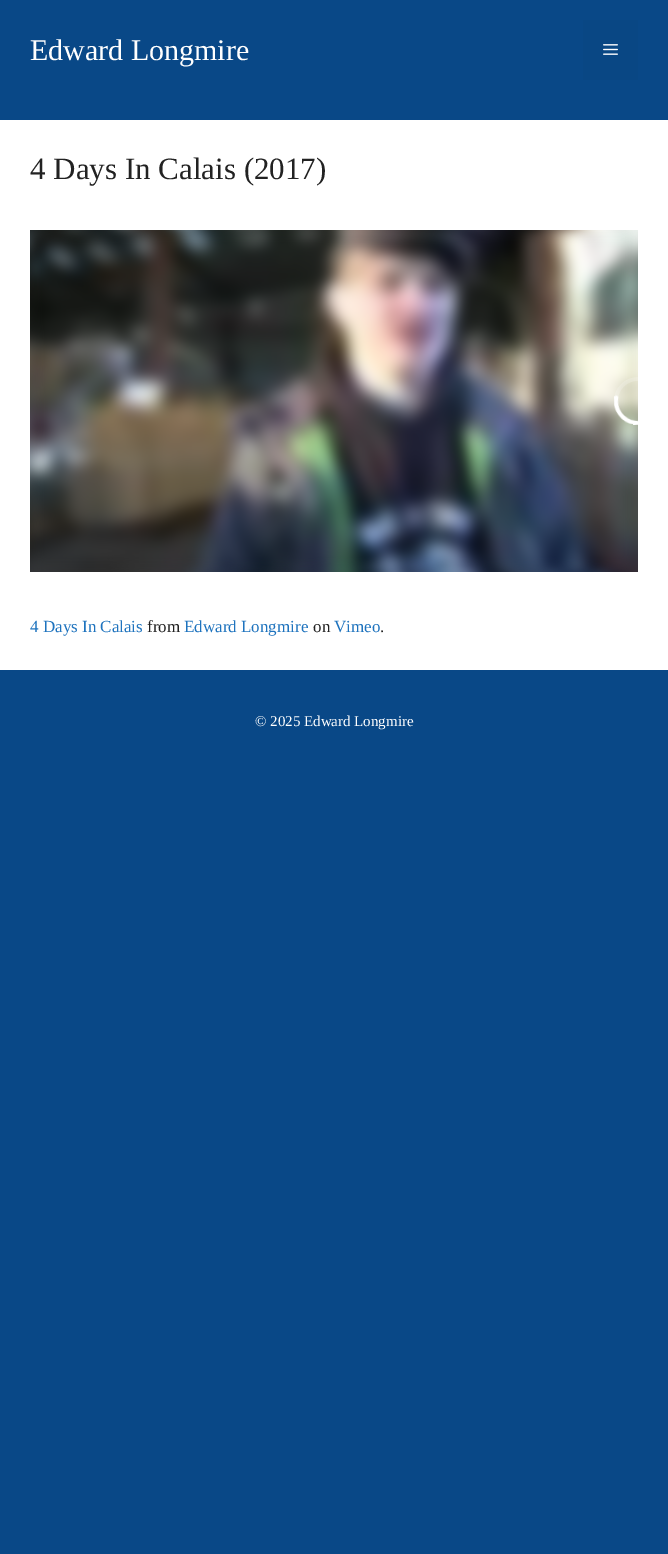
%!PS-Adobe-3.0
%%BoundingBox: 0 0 668 1554
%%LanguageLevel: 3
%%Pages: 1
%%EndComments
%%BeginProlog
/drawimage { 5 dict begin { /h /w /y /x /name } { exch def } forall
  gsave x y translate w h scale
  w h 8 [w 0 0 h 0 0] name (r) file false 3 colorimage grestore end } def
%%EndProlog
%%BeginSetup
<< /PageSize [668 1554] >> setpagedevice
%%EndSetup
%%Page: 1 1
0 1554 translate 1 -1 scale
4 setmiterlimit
0.035 0.282 0.529 setrgbcolor
0 0 668 1554 rectfill
0.035 0.278 0.518 setrgbcolor
583 20 55 60 rectfill
(images/1.raw) 603 44 15 11 drawimage
1 setgray
0 120 668 550 rectfill
(images/2.raw) 30 230 608 342 drawimage
/LiberationSerif-Regular [30 0 0 -30 0 0] selectfont
30 60 moveto (Edward Longmire) show
/LiberationSerif-Regular [31 0 0 -31 0 0] selectfont
0.133 setgray
30 179 moveto (4 Days In Calais \(2017\)) show
/LiberationSerif-Regular [17 0 0 -17 0 0] selectfont
0.118 0.451 0.745 setrgbcolor
30 632 moveto (4 Days In Calais) show
0.133 setgray
147 632 moveto (from) show
0.118 0.451 0.745 setrgbcolor
184 632 moveto (Edward Longmire) show
0.133 setgray
313 632 moveto (on) show
0.118 0.451 0.745 setrgbcolor
334 632 moveto (Vimeo) show
0.133 setgray
380 632 moveto (.) show
/LiberationSerif-Regular [15 0 0 -15 0 0] selectfont
1 setgray
255 726 moveto (© 2025 Edward Longmire) show
showpage
%%EOF
